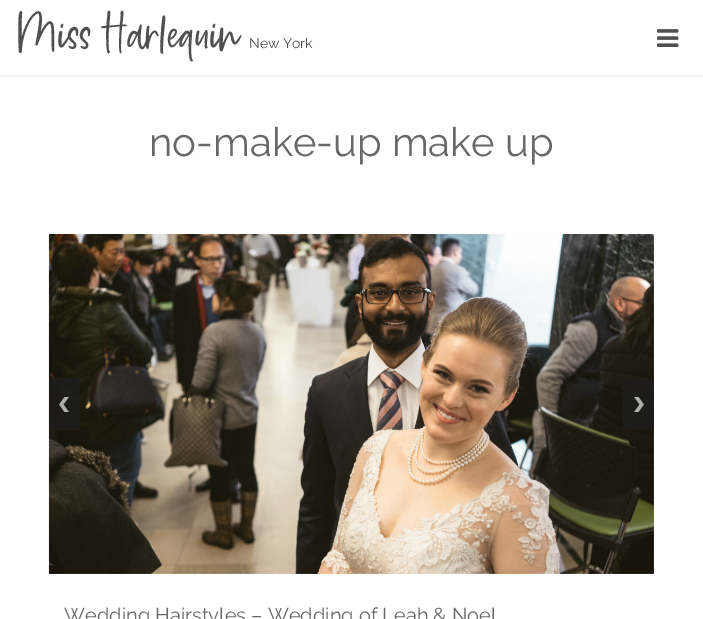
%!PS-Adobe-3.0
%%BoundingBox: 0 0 703 619
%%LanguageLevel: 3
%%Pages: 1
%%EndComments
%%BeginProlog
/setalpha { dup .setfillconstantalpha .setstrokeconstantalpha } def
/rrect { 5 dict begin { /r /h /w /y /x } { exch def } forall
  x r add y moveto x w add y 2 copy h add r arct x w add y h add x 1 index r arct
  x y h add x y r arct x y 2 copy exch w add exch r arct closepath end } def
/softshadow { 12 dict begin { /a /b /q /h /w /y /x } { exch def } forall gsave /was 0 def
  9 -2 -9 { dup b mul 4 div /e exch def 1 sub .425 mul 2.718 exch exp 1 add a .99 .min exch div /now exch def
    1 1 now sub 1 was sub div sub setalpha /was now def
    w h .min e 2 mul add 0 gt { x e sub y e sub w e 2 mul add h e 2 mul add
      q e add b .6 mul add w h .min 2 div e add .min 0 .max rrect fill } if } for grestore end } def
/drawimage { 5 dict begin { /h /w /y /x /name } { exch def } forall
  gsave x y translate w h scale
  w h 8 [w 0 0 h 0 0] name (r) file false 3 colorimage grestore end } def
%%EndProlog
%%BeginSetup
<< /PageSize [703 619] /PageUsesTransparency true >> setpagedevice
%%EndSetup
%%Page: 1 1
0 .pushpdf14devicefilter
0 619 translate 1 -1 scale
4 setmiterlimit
1 setgray
0 0 703 619 rectfill
gsave
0 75 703 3 rectclip
0 setgray
0 1 703 75 0 2 0.1 softshadow
grestore
(images/1.raw) 657 29 22 18 drawimage
(images/2.raw) 48 234 606 340 drawimage
0.8 setalpha
0.114 setgray
49 378 31 52 rectfill
1 setalpha
(images/3.raw) 59 397 10 15 drawimage
0.8 setalpha
623 378 31 52 rectfill
1 setalpha
(images/4.raw) 634 397 10 15 drawimage
/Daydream-Regular [60 0 0 -60 0 0] selectfont
0.314 setgray
20 53 moveto (Miss Harlequin) show
/Raleway-Regular [14 0 0 -14 0 0] selectfont
249 48 moveto (New York) show
/Raleway-Regular [40 0 0 -40 0 0] selectfont
0.412 0.408 0.408 setrgbcolor
149 156 moveto (no-make-up make up) show
/Raleway-Regular [20 0 0 -20 0 0] selectfont
64 622 moveto (Wedding Hairstyles – Wedding of Leah & Noel) show
.poppdf14devicefilter showpage
%%EOF
